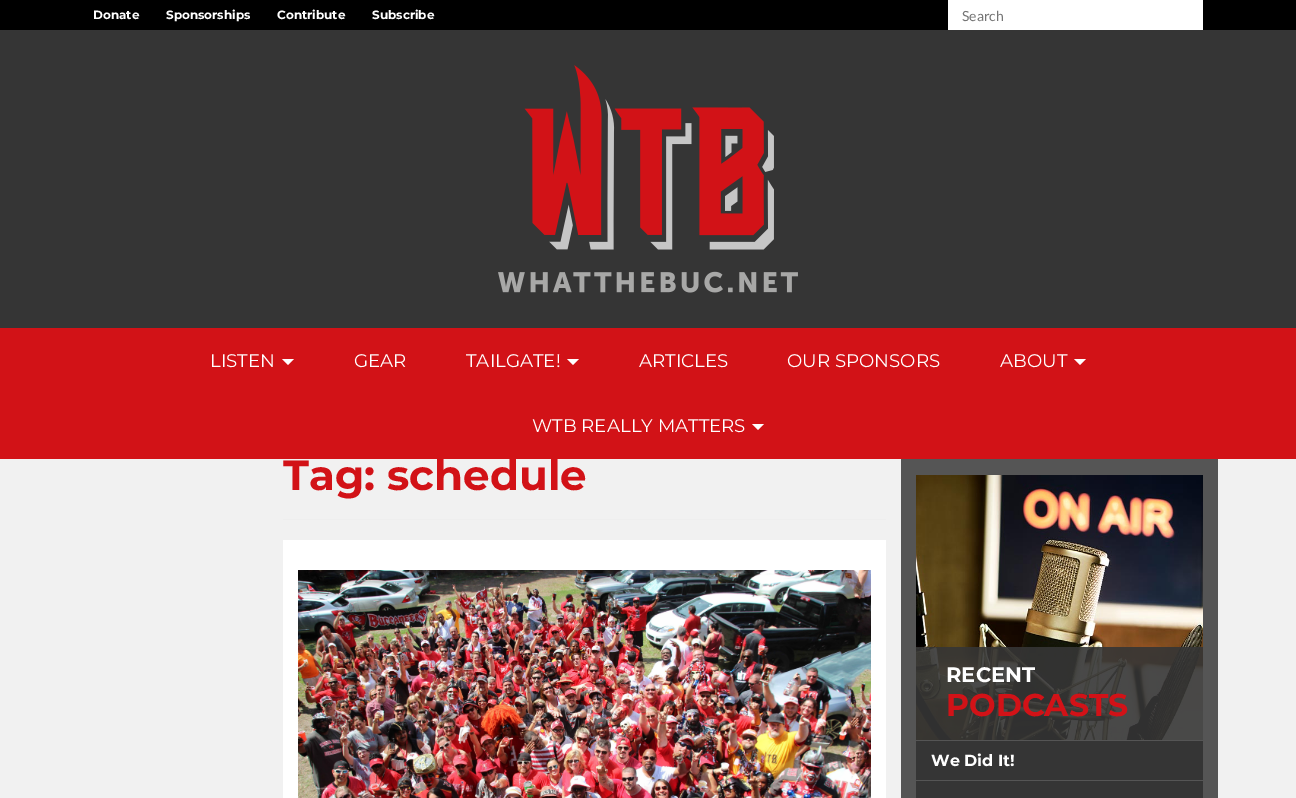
%!PS-Adobe-3.0
%%BoundingBox: 0 0 1296 798
%%LanguageLevel: 3
%%Pages: 1
%%EndComments
%%BeginProlog
/setalpha { dup .setfillconstantalpha .setstrokeconstantalpha } def
/drawimage { 5 dict begin { /h /w /y /x /name } { exch def } forall
  gsave x y translate w h scale
  w h 8 [w 0 0 h 0 0] name (r) file false 3 colorimage grestore end } def
%%EndProlog
%%BeginSetup
<< /PageSize [1296 798] /PageUsesTransparency true >> setpagedevice
%%EndSetup
%%Page: 1 1
0 .pushpdf14devicefilter
0 798 translate 1 -1 scale
4 setmiterlimit
0.945 setgray
0 0 1296 798 rectfill
0.208 setgray
0 30 1296 298 rectfill
0 setgray
0 0 1296 30 rectfill
1 setgray
948 0 255 30 rectfill
(images/1.raw) 498 65 300 228 drawimage
0.824 0.071 0.09 setrgbcolor
0 328 1296 131 rectfill
1 setgray
newpath 282 359 moveto 294 359 lineto 288 365 lineto closepath fill
newpath 567 359 moveto 579 359 lineto 573 365 lineto closepath fill
newpath 1074 359 moveto 1086 359 lineto 1080 365 lineto closepath fill
newpath 752 424 moveto 764 424 lineto 758 430 lineto closepath fill
0.933 setgray
283 519 603 1 rectfill
1 setgray
283 540 603 258 rectfill
(images/2.raw) 298 570 573 228 drawimage
0.333 setgray
901 459 317 339 rectfill
(images/3.raw) 916 475 287 265 drawimage
0.9 setalpha
0.208 setgray
916 647 287 93 rectfill
1 setalpha
916 741 287 39 rectfill
916 781 287 17 rectfill
/Montserrat-Bold [12 0 0 -12 0 0] selectfont
1 setgray
93 19 moveto (Donate) show
166 19 moveto (Sponsorships) show
277 19 moveto (Contribute) show
372 19 moveto (Subscribe) show
/Lato-Regular [14 0 0 -14 0 0] selectfont
0.459 setgray
962 21 moveto (Search) show
/Montserrat-Regular [18.25 0 0 -18.25 0 0] selectfont
1 setgray
210 367 moveto (LISTEN) show
354 367 moveto (GEAR) show
466 367 moveto (TAILGATE!) show
639 367 moveto (ARTICLES) show
787 367 moveto (OUR SPONSORS) show
1000 367 moveto (ABOUT) show
532 432 moveto (WTB REALLY MATTERS) show
/Montserrat-Bold [42 0 0 -42 0 0] selectfont
0.824 0.071 0.09 setrgbcolor
283 490 moveto (Tag: schedule) show
/Montserrat-Bold [21 0 0 -21 0 0] selectfont
1 setgray
946 682 moveto (RECENT) show
/Montserrat-Bold [31.5 0 0 -31.5 0 0] selectfont
0.824 0.071 0.09 setrgbcolor
946 716 moveto (PODCASTS) show
/Montserrat-Bold [16 0 0 -16 0 0] selectfont
1 setgray
931 766 moveto (We Did It!) show
.poppdf14devicefilter showpage
%%EOF
